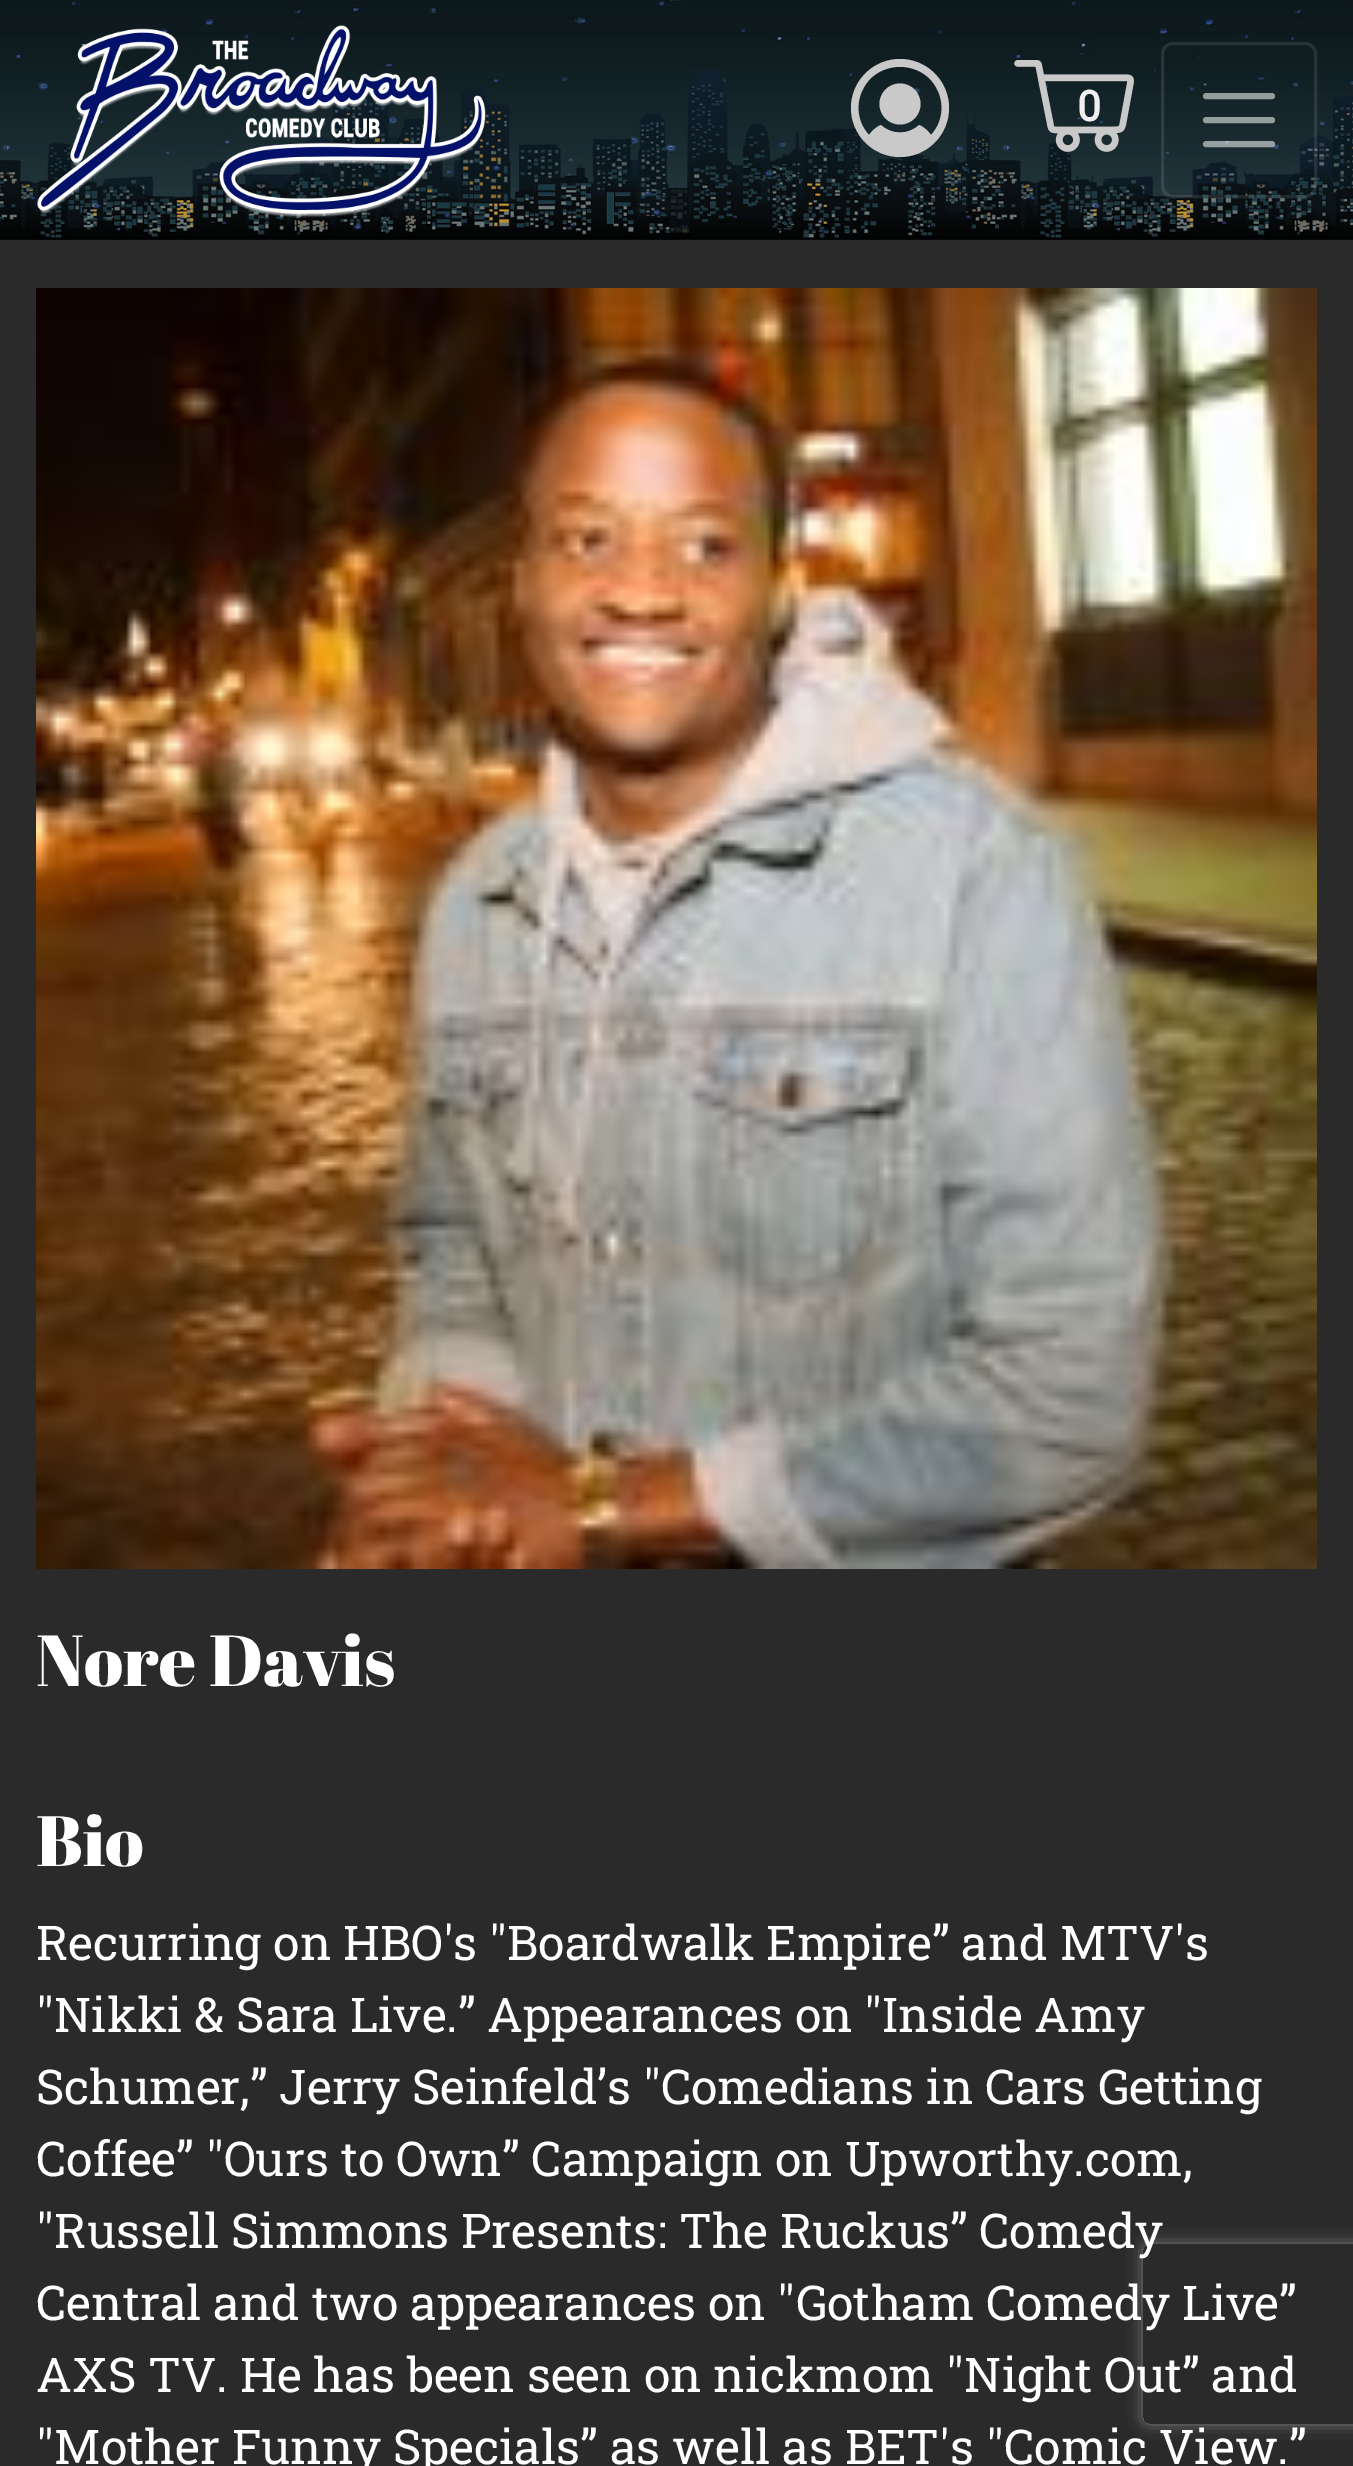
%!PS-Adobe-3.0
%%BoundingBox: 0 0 1353 2466
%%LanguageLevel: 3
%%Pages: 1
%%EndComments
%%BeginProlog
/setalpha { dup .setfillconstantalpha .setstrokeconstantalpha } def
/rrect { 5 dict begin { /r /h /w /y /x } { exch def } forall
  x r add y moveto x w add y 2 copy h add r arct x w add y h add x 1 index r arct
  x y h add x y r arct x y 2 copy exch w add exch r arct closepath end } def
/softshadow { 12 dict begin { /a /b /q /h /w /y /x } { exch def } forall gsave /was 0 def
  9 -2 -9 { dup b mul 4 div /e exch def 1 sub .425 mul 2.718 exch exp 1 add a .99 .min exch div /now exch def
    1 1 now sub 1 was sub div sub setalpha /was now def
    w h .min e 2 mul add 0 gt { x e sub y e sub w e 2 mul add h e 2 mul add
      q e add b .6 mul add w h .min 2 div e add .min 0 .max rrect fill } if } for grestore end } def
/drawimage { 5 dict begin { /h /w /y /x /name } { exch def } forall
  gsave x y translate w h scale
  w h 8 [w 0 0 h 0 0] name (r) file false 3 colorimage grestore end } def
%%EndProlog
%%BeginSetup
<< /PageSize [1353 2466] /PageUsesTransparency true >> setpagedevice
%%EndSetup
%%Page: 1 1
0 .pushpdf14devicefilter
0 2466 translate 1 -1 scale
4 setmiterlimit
1 setgray
0 0 1353 2466 rectfill
(images/1.raw) 0 0 1353 240 drawimage
(images/2.raw) 37 25 449 193 drawimage
0.788 setgray
newpath 900 104 20.5 0 360 arc closepath fill
newpath 900 59 moveto 873 59 851 81 851 108 curveto 851 135 873 157 900 157 curveto 927 157 949 135 949 108 curveto 949 81 927 59 900 59 curveto closepath 931 135 moveto 928 131 924 127 919 125 curveto 909 135 891 135 881 125 curveto 876 127 872 131 869 135 curveto 854 119 855 94 871 78 curveto 887 63 913 63 929 78 curveto 945 94 946 119 931 135 curveto closepath fill
(images/3.raw) 1014 60 120 92 drawimage
0.1 setalpha
1 setgray
3 setlinewidth
1162.5 43.5 153 153 10.5 rrect stroke
0.55 setalpha
6 setlinewidth
1 setlinecap
newpath 1206 96 moveto 1272 96 lineto 1206 120 moveto 1272 120 lineto 1206 144 moveto 1272 144 lineto stroke
1 setalpha
0.165 setgray
0 240 1353 2226 rectfill
(images/4.raw) 36 288 1281 1281 drawimage
gsave
newpath 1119 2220 moveto 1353 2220 lineto 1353 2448 lineto 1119 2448 lineto closepath 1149 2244 moveto 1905 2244 lineto 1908.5 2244 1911 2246.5 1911 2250 curveto 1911 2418 lineto 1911 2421.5 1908.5 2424 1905 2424 curveto 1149 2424 lineto 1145.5 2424 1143 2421.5 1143 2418 curveto 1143 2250 lineto 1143 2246.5 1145.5 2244 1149 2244 curveto closepath eoclip newpath
0.502 setgray
1143 2244 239 180 6 7.5 1 softshadow
grestore
/RobotoSlab-Bold [42 0 0 -42 0 0] selectfont
0.941 setgray
1077 121 moveto (0) show
/AbrilFatface-Regular [72 0 0 -72 0 0] selectfont
1 setgray
36 1686 moveto (Nore Davis) show
/AbrilFatface-Regular [71 0 0 -71 0 0] selectfont
36 1866 moveto (Bio) show
/RobotoSlab-Regular [48 0 0 -48 0 0] selectfont
36 1960 moveto (Recurring on HBO's "Boardwalk Empire” and MTV's) show
36 2032 moveto ("Nikki & Sara Live.” Appearances on "Inside Amy) show
36 2104 moveto (Schumer,” Jerry Seinfeld’s "Comedians in Cars Getting) show
36 2176 moveto (Coffee” "Ours to Own” Campaign on Upworthy.com,) show
36 2248 moveto ("Russell Simmons Presents: The Ruckus” Comedy) show
36 2320 moveto (Central and two appearances on "Gotham Comedy Live”) show
36 2392 moveto (AXS TV. He has been seen on nickmom "Night Out” and) show
36 2464 moveto ("Mother Funny Specials” as well as BET's "Comic View.”) show
.poppdf14devicefilter showpage
%%EOF
